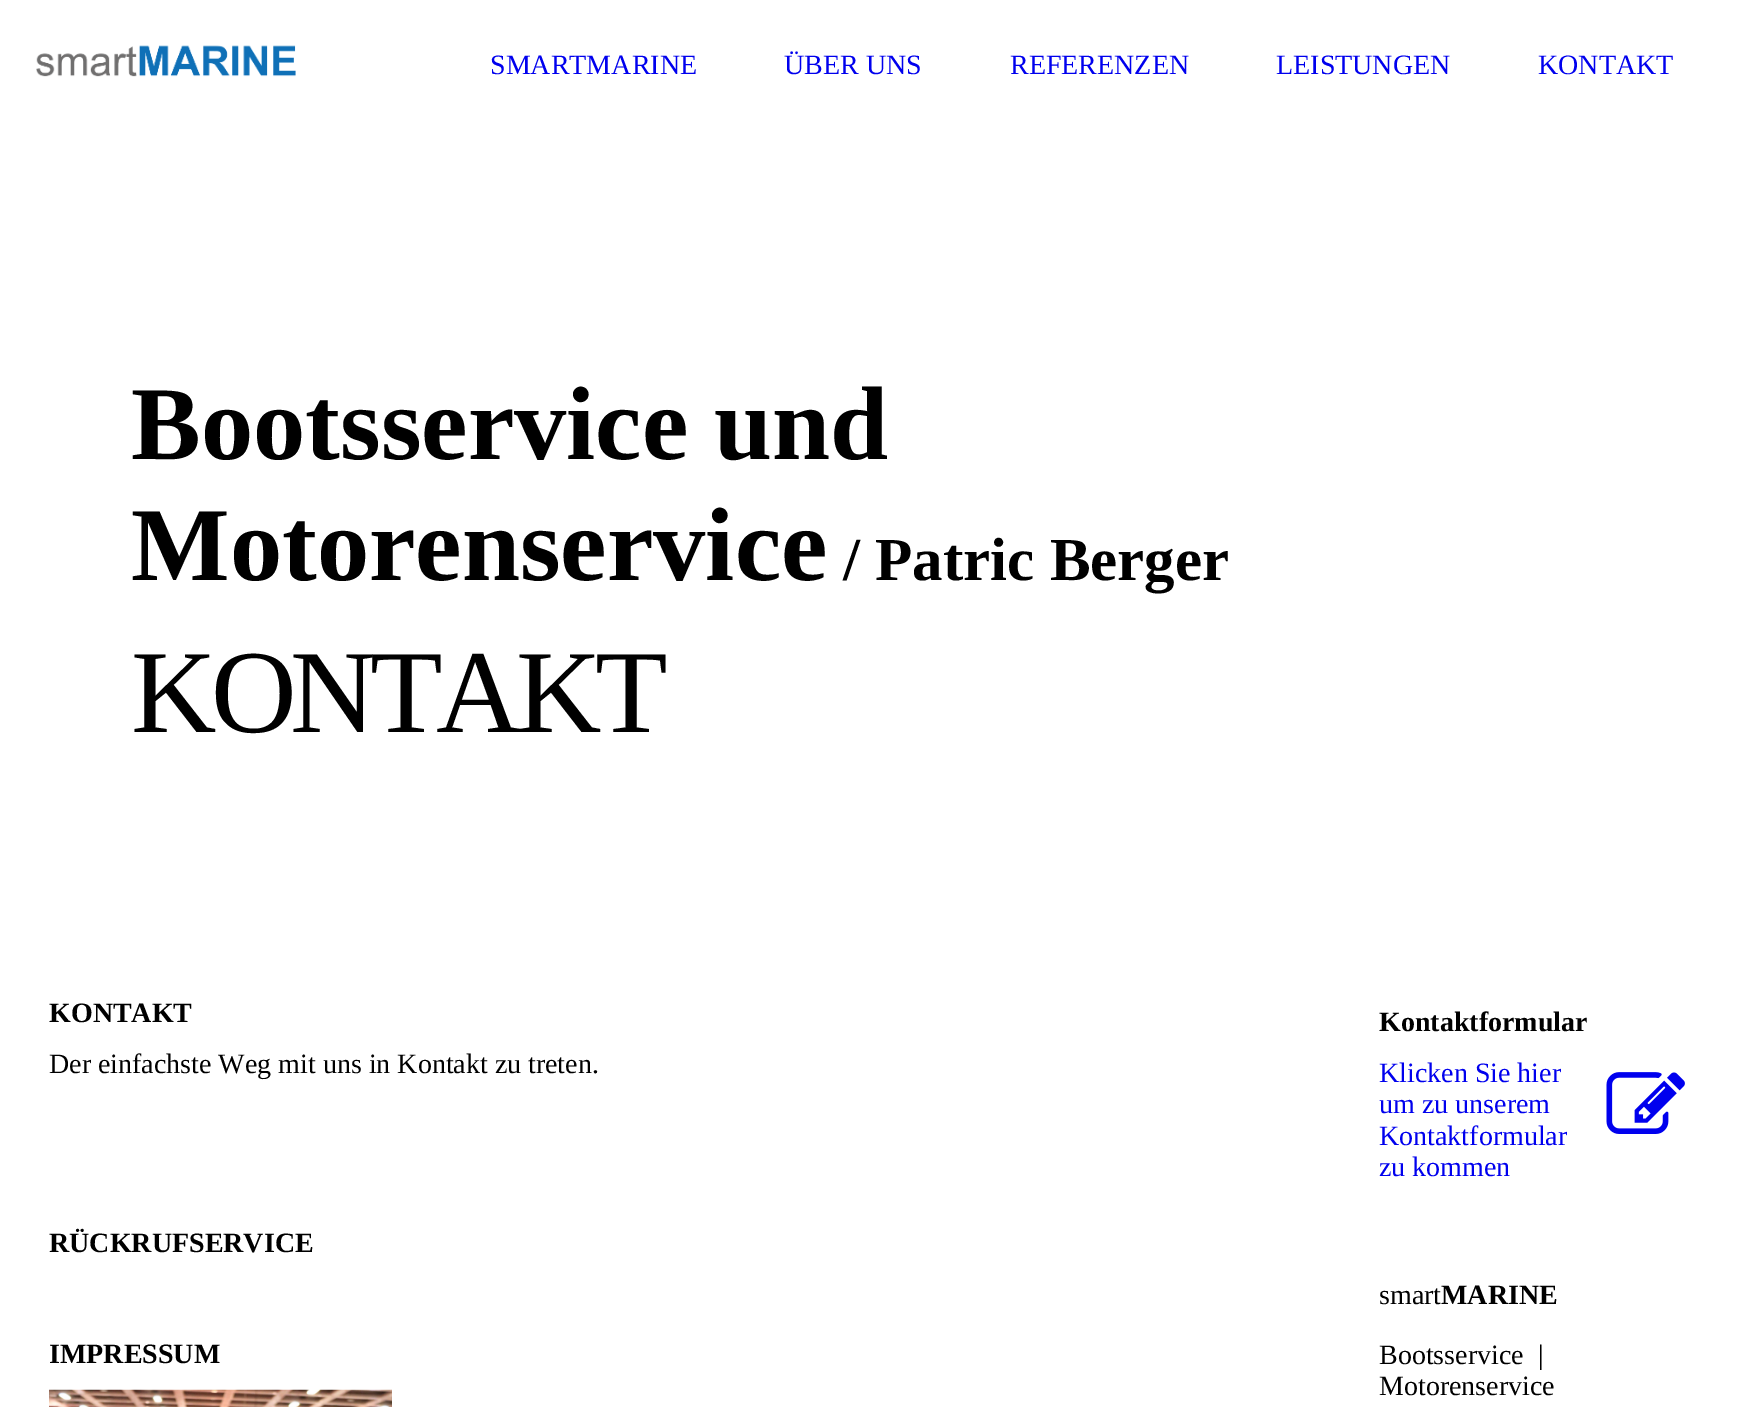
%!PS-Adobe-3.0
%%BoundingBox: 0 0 1742 1407
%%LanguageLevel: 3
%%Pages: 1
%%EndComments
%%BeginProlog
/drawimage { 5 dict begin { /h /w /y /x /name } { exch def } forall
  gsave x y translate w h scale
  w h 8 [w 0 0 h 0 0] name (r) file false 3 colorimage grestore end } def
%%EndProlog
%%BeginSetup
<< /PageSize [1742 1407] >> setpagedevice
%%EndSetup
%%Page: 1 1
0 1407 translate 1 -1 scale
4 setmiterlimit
1 setgray
0 0 1742 1407 rectfill
(images/1.raw) 36 45 260 32 drawimage
(images/2.raw) 49 1389 343 18 drawimage
(images/3.raw) 1606 1072 79 62 drawimage
/LiberationSerif-Regular [28 0 0 -28 0 0] selectfont
0 0 0.933 setrgbcolor
490 74 moveto (SMARTMARINE) show
784 74 moveto (ÜBER UNS) show
1010 74 moveto (REFERENZEN) show
1276 74 moveto (LEISTUNGEN) show
1538 74 moveto (KONTAKT) show
/LiberationSerif-Bold [104.5 0 0 -104.5 0 0] selectfont
0 setgray
131 459 moveto (Bootsservice und) show
131 580 moveto (Motorenservice) show
/LiberationSerif-Bold [61 0 0 -61 0 0] selectfont
843 580 moveto (/ Patric Berger) show
/LiberationSerif-Regular [118.5 0 0 -118.5 0 0] selectfont
131 732 moveto -6 0 (KONTAKT) ashow
/LiberationSerif-Bold [28 0 0 -28 0 0] selectfont
49 1022 moveto (KONTAKT) show
/LiberationSerif-Regular [28 0 0 -28 0 0] selectfont
49 1073 moveto (Der einfachste Weg mit uns in Kontakt zu treten.) show
/LiberationSerif-Bold [28 0 0 -28 0 0] selectfont
49 1252 moveto (RÜCKRUFSERVICE) show
49 1363 moveto (IMPRESSUM) show
1379 1031 moveto (Kontaktformular) show
/LiberationSerif-Regular [28 0 0 -28 0 0] selectfont
0 0 0.933 setrgbcolor
1379 1082 moveto (Klicken Sie hier) show
1379 1113 moveto (um zu unserem) show
1379 1145 moveto (Kontaktformular) show
1379 1176 moveto (zu kommen) show
0 setgray
1379 1304 moveto (smart) show
/LiberationSerif-Bold [28 0 0 -28 0 0] selectfont
1441 1304 moveto (MARINE) show
/LiberationSerif-Regular [28 0 0 -28 0 0] selectfont
1379 1364 moveto (Bootsservice  |) show
1379 1395 moveto (Motorenservice) show
showpage
%%EOF
